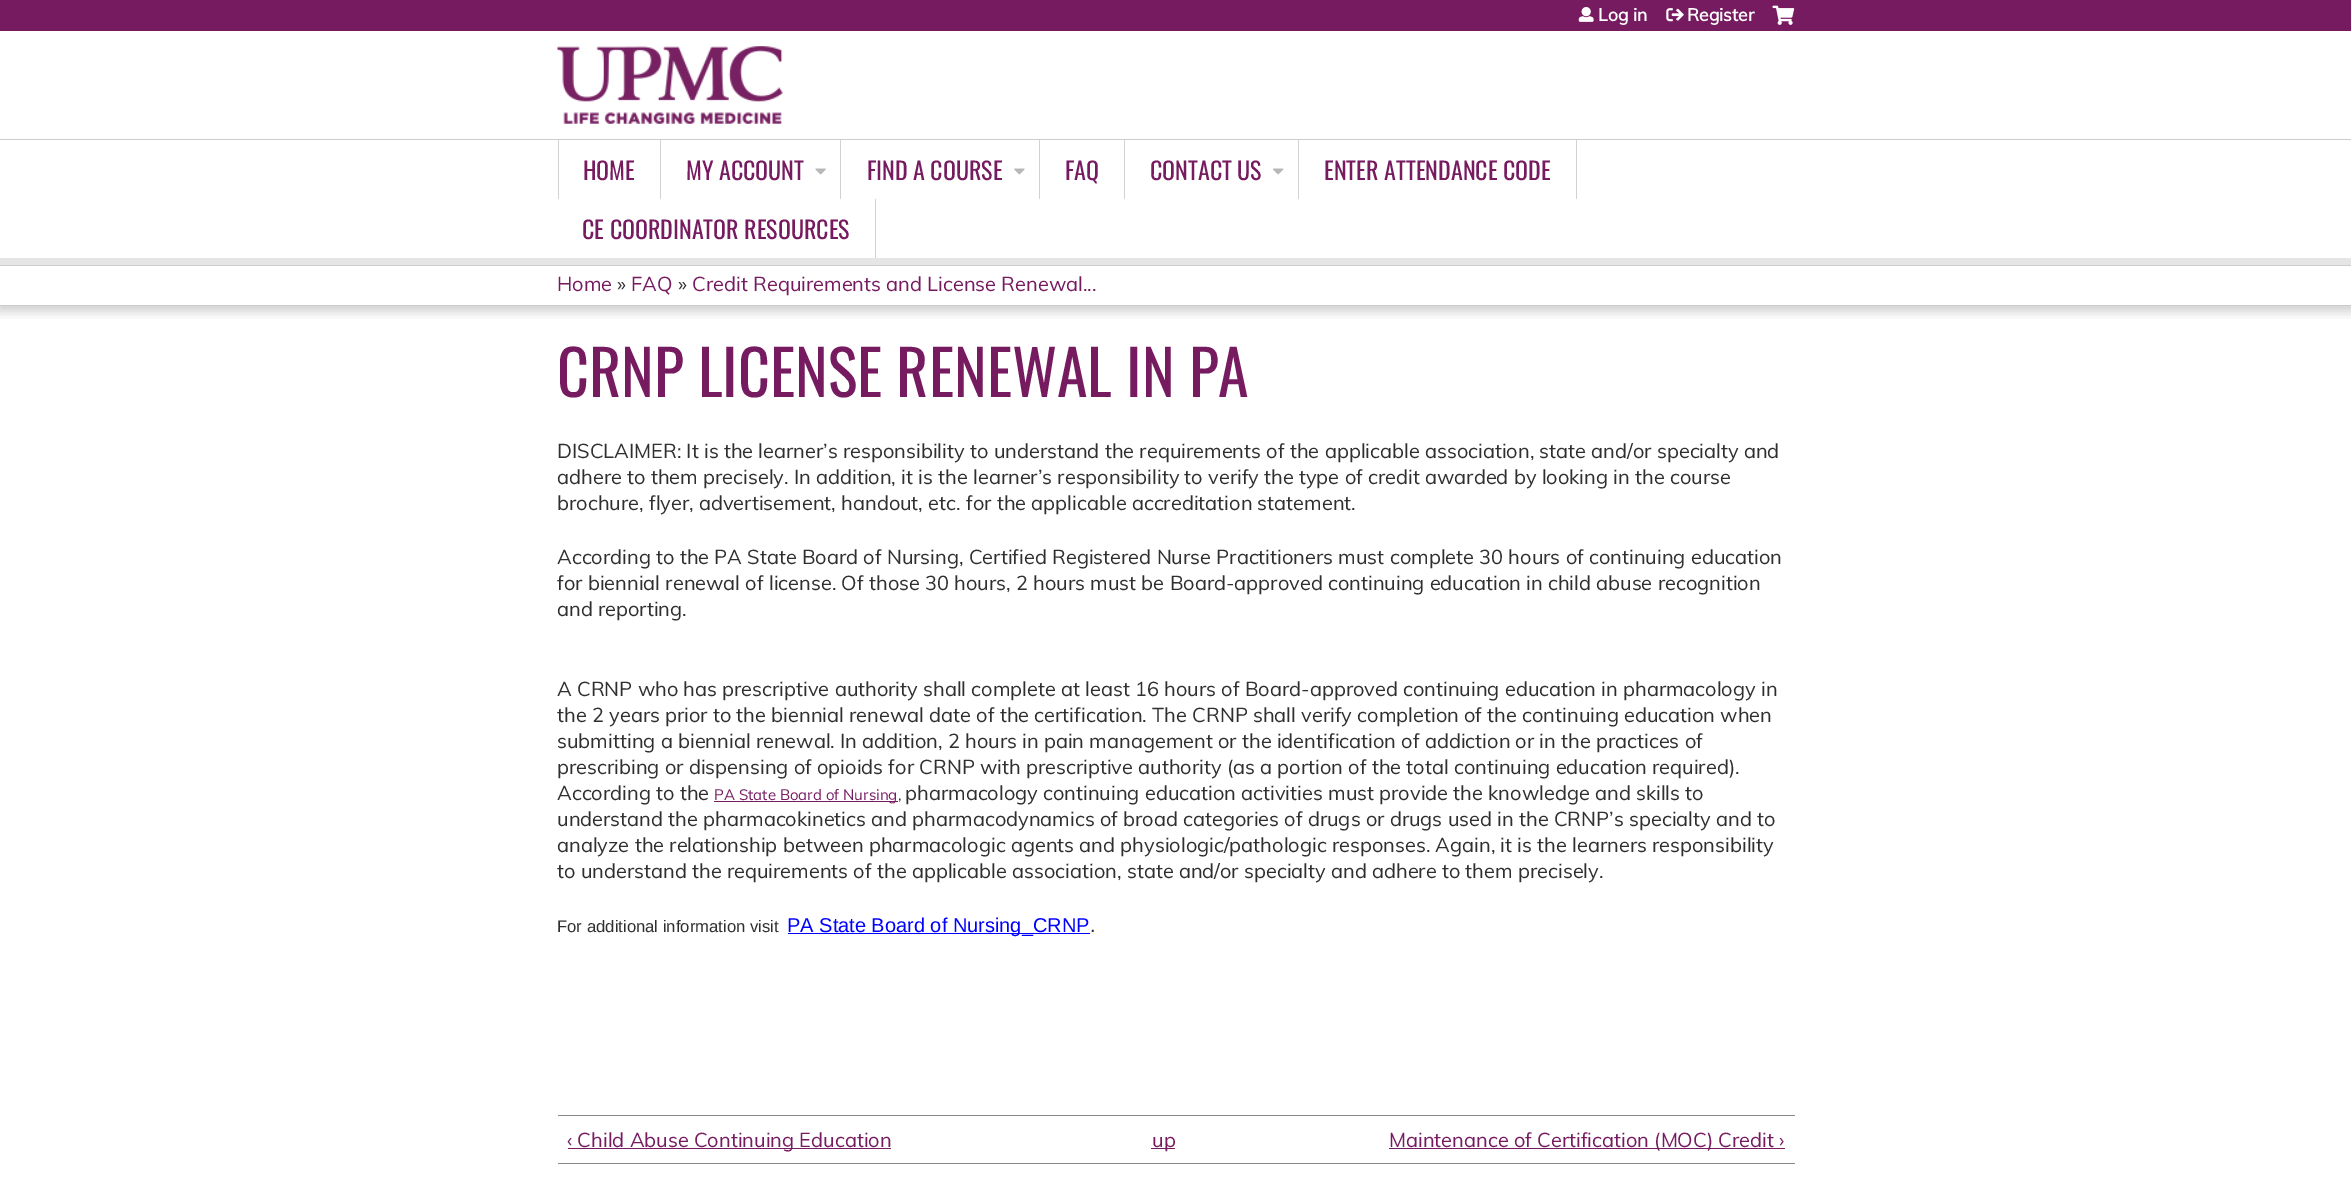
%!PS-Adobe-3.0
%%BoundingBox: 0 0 2351 1199
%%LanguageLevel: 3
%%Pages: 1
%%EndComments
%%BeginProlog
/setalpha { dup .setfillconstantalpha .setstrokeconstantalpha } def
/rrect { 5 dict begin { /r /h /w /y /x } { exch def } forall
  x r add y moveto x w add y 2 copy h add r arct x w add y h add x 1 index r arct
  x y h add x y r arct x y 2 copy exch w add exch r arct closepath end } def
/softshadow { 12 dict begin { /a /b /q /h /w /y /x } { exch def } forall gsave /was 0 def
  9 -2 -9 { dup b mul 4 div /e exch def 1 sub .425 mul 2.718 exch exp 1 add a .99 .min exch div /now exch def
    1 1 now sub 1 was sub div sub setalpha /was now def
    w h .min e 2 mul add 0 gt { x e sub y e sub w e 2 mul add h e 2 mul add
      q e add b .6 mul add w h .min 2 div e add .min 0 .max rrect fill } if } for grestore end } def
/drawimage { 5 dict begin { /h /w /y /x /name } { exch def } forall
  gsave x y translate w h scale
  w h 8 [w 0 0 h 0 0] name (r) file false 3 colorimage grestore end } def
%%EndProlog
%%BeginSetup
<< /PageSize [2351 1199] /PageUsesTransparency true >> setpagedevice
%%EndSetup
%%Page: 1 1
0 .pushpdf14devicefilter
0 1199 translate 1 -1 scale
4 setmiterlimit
1 setgray
0 0 2351 1199 rectfill
0.467 0.106 0.38 setrgbcolor
0 0 2351 31 rectfill
(images/1.raw) 1578 7 16 15 drawimage
(images/2.raw) 1666 8 18 14 drawimage
(images/3.raw) 1772 5 23 20 drawimage
(images/4.raw) 557 46 226 78 drawimage
0.8 setgray
0 139 2351 1 rectfill
gsave
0 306 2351 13 rectclip
0 setgray
-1 268 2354 43 0 6 0.2 softshadow
grestore
0.898 setgray
0 258 2351 7 rectfill
0.824 setgray
660 140 1 59 rectfill
558 140 1 59 rectfill
840 140 1 59 rectfill
(images/5.raw) 815 168 11 7 drawimage
1039 140 1 59 rectfill
(images/6.raw) 1014 168 11 7 drawimage
1124 140 1 59 rectfill
1298 140 1 59 rectfill
(images/7.raw) 1273 168 11 7 drawimage
1576 140 1 59 rectfill
875 199 1 59 rectfill
0.8 setgray
0 265 2351 1 rectfill
0 305 2351 1 rectfill
0.467 0.106 0.38 setrgbcolor
714 801 184 1 rectfill
0 0 1 setrgbcolor
788 933 302 1 rectfill
0.533 setgray
558 1115 1237 1 rectfill
558 1163 1237 1 rectfill
0.467 0.106 0.38 setrgbcolor
568 1148 323 1 rectfill
1151 1148 24 1 rectfill
1389 1148 396 1 rectfill
/Muli-Bold [17.5 0 0 -17.5 0 0] selectfont
1 setgray
1598 21 moveto (Log in) show
1687 21 moveto (Register) show
/Oswald-Regular [24 0 0 -24 0 0] selectfont
0.467 0.106 0.38 setrgbcolor
583 180 moveto (HOME) show
686 180 moveto (MY ACCOUNT) show
867 180 moveto (FIND A COURSE) show
1065 180 moveto (FAQ) show
1150 180 moveto (CONTACT US) show
1324 180 moveto (ENTER ATTENDANCE CODE) show
582 239 moveto (CE COORDINATOR RESOURCES) show
/Muli-Regular [20 0 0 -20 0 0] selectfont
557 291 moveto (Home) show
0.184 setgray
617 291 moveto (») show
0.467 0.106 0.38 setrgbcolor
631 291 moveto (FAQ) show
0.184 setgray
678 291 moveto (») show
0.467 0.106 0.38 setrgbcolor
692 291 moveto (Credit Requirements and License Renewal...) show
/Oswald-Regular [62 0 0 -62 0 0] selectfont
557 397 moveto (CRNP LICENSE RENEWAL IN PA) show
/Muli-Regular [20 0 0 -20 0 0] selectfont
0.184 setgray
557 458 moveto (DISCLAIMER: It is the learner’s responsibility to understand the requirements of the applicable association, state and/or specialty and) show
557 484 moveto (adhere to them precisely. In addition, it is the learner’s responsibility to verify the type of credit awarded by looking in the course) show
557 510 moveto (brochure, flyer, advertisement, handout, etc. for the applicable accreditation statement.) show
557 564 moveto (According to the PA State Board of Nursing, Certified Registered Nurse Practitioners must complete 30 hours of continuing education) show
557 590 moveto (for biennial renewal of license. Of those 30 hours, 2 hours must be Board-approved continuing education in child abuse recognition) show
557 616 moveto (and reporting.) show
557 696 moveto (A CRNP who has prescriptive authority shall complete at least 16 hours of Board-approved continuing education in pharmacology in) show
557 722 moveto (the 2 years prior to the biennial renewal date of the certification. The CRNP shall verify completion of the continuing education when) show
557 748 moveto (submitting a biennial renewal. In addition, 2 hours in pain management or the identification of addiction or in the practices of) show
557 774 moveto (prescribing or dispensing of opioids for CRNP with prescriptive authority \(as a portion of the total continuing education required\).) show
557 800 moveto (According to the) show
/Muli-Regular [15 0 0 -15 0 0] selectfont
0.467 0.106 0.38 setrgbcolor
714 800 moveto (PA State Board of Nursing) show
0.184 setgray
898 800 moveto (,) show
/Muli-Regular [20 0 0 -20 0 0] selectfont
905 800 moveto (pharmacology continuing education activities must provide the knowledge and skills to) show
557 826 moveto (understand the pharmacokinetics and pharmacodynamics of broad categories of drugs or drugs used in the CRNP’s specialty and to) show
557 852 moveto (analyze the relationship between pharmacologic agents and physiologic/pathologic responses. Again, it is the learners responsibility) show
557 878 moveto (to understand the requirements of the applicable association, state and/or specialty and adhere to them precisely.) show
/LiberationSans-Regular [16.7 0 0 -16.7 0 0] selectfont
557 932 moveto (For additional information visit) show
/LiberationSans-Regular [20 0 0 -20 0 0] selectfont
0 0 1 setrgbcolor
787 932 moveto (PA State Board of Nursing_CRNP) show
0.184 setgray
1090 932 moveto (.) show
/Muli-Regular [20 0 0 -20 0 0] selectfont
0.467 0.106 0.38 setrgbcolor
567 1147 moveto (‹ Child Abuse Continuing Education) show
1152 1147 moveto (up) show
1389 1147 moveto (Maintenance of Certification \(MOC\) Credit ›) show
.poppdf14devicefilter showpage
%%EOF
